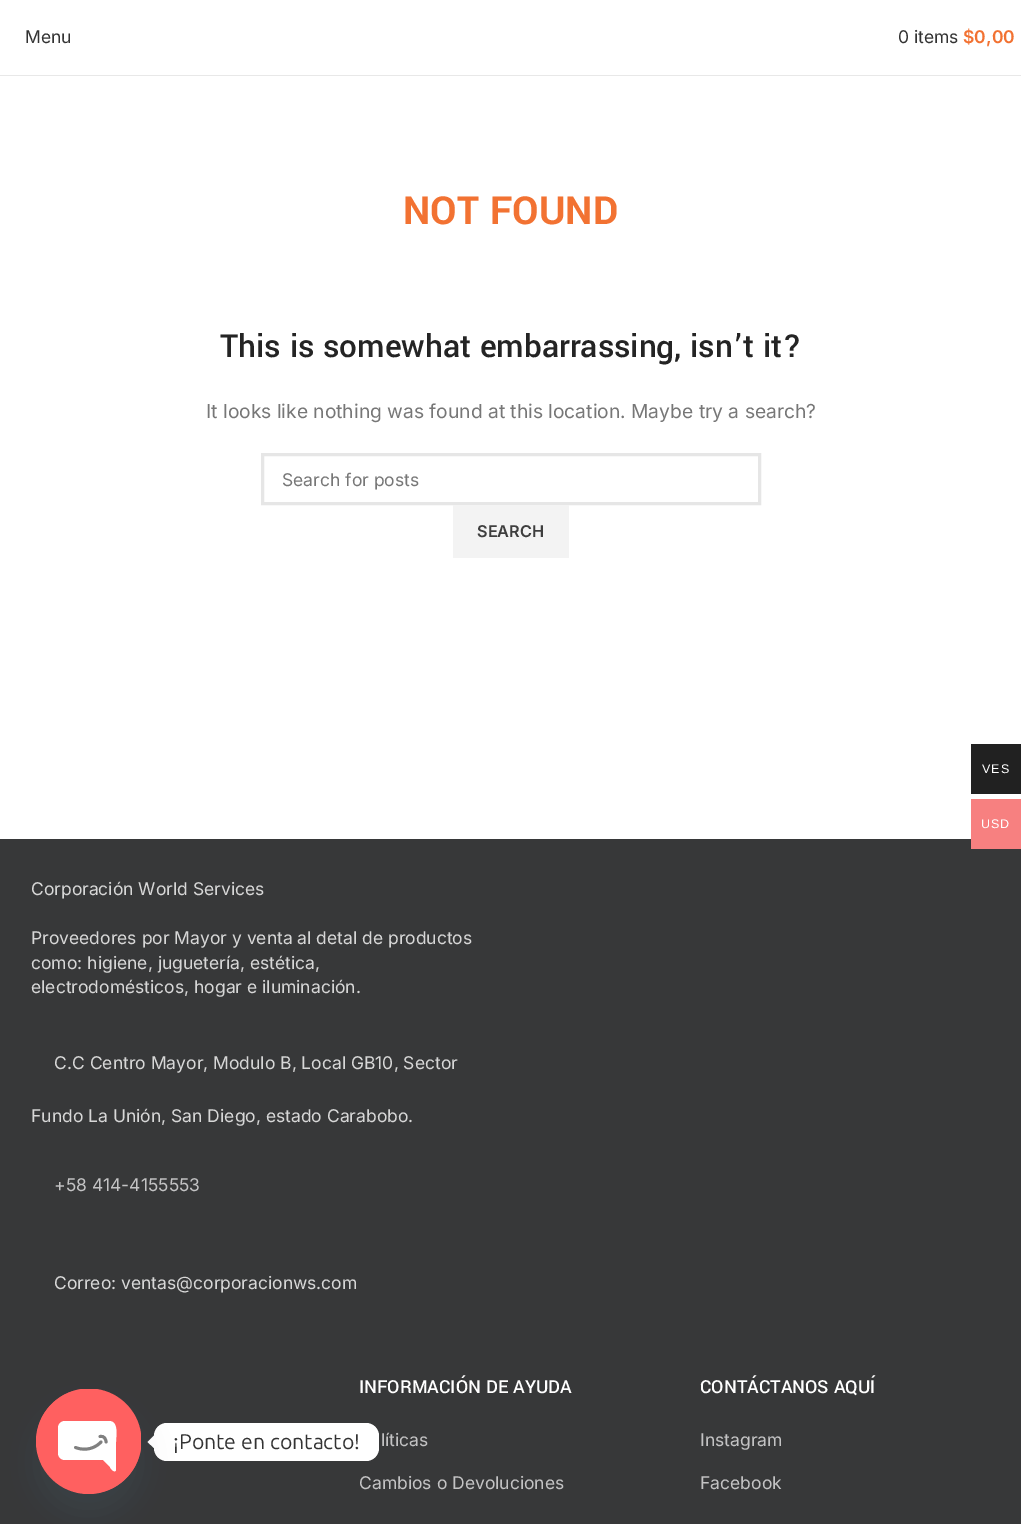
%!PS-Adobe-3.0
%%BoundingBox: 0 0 1021 1524
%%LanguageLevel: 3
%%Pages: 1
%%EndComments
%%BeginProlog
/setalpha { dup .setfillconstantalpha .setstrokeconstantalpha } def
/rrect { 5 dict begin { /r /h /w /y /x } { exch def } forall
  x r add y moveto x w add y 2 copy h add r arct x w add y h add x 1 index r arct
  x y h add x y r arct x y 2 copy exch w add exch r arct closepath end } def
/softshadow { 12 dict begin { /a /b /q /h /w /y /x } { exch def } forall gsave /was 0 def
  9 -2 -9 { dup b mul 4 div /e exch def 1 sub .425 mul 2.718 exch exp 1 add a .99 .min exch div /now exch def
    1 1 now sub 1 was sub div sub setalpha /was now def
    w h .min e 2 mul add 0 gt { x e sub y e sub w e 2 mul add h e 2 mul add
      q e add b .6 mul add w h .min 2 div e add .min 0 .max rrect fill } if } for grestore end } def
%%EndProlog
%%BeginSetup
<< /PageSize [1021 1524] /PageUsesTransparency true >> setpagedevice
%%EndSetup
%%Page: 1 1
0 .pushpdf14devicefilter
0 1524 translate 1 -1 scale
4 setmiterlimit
1 setgray
0 0 1021 1524 rectfill
0.91 setgray
0 75 1021 1 rectfill
0.902 setgray
3 setlinewidth
262.5 454.5 497 49 rectstroke
0.953 setgray
453 505 116 53 rectfill
0.216 0.22 0.224 setrgbcolor
0 839 1021 685 rectfill
0.129 setgray
971 744 50 50 rectfill
0.969 0.502 0.502 setrgbcolor
971 799 50 50 rectfill
1 setgray
154 1423 225 38 13 rrect fill
newpath 154 1435.5 moveto 154 1448 lineto 147.5 1442 lineto closepath fill
0.286 0.408 0.494 setrgbcolor
36 1409 105 105 52.5 15 0.16 softshadow
1 0.376 0.376 setrgbcolor
newpath 88.5 1441.5 52.5 0 360 arc closepath fill
gsave
36 1389 105 105 rectclip
newpath 89 1441 52.5 0 360 arc closepath fill
grestore
1 setgray
newpath 109 1421 moveto 65 1421 lineto 61 1421 58 1424 58 1428 curveto 58 1453 lineto 58 1457 61 1460 65 1460 curveto 103 1460 lineto 110 1467 lineto 110 1468 115 1474 116 1470 curveto 116 1442 lineto 116 1436 119 1421 109 1421 curveto closepath fill
0.502 setgray
2.9 setlinewidth
1 setlinecap
1 setlinejoin
newpath 75.5 1447.5 moveto 80.5 1449.5 92 1451.5 101 1442 curveto 106 1442 moveto 106 1439.5 104.5 1435.5 100 1436.5 curveto stroke
/Inter-Regular [17.5 0 0 -17.5 0 0] selectfont
0.2 setgray
25 43 moveto (Menu) show
898 43 moveto (0 items) show
/Inter-SemiBold [17.5 0 0 -17.5 0 0] selectfont
0.949 0.447 0.196 setrgbcolor
963 43 moveto ($0,00) show
/Yantramanav-Bold [43 0 0 -43 0 0] selectfont
403 224 moveto (NOT FOUND) show
/Yantramanav-Medium [35 0 0 -35 0 0] selectfont
0.141 setgray
220 357 moveto (This is somewhat embarrassing, isn’t it?) show
/Inter-Regular [19.25 0 0 -19.25 0 0] selectfont
0.467 setgray
206 418 moveto (It looks like nothing was found at this location. Maybe try a search?) show
/Inter-Regular [17.5 0 0 -17.5 0 0] selectfont
282 486 moveto (Search for posts) show
/Inter-SemiBold [16.25 0 0 -16.25 0 0] selectfont
0.243 setgray
477 537 moveto (SEARCH) show
/Inter-Regular [17.5 0 0 -17.5 0 0] selectfont
0.843 setgray
31 895 moveto (Corporación World Services) show
31 944 moveto (Proveedores por Mayor y venta al detal de productos) show
31 969 moveto (como: higiene, juguetería, estética,) show
31 993 moveto (electrodomésticos, hogar e iluminación.) show
54 1069 moveto (C.C Centro Mayor, Modulo B, Local GB10, Sector) show
31 1122 moveto (Fundo La Unión, San Diego, estado Carabobo.) show
0.765 0.765 0.769 setrgbcolor
54 1191 moveto (+58 414-4155553) show
0.843 setgray
54 1289 moveto (Correo: ventas@corporacionws.com) show
/Yantramanav-Medium [20 0 0 -20 0 0] selectfont
1 setgray
359 1393 moveto (INFORMACIÓN DE AYUDA) show
/Inter-Regular [17.5 0 0 -17.5 0 0] selectfont
0.765 0.765 0.769 setrgbcolor
381 1446 moveto (líticas) show
359 1489 moveto (Cambios o Devoluciones) show
/Yantramanav-Medium [20 0 0 -20 0 0] selectfont
1 setgray
700 1393 moveto (CONTÁCTANOS AQUÍ) show
/Inter-Regular [17.5 0 0 -17.5 0 0] selectfont
0.765 0.765 0.769 setrgbcolor
700 1446 moveto (Instagram) show
700 1489 moveto (Facebook) show
/LiberationSans-Regular [12.5 0 0 -12.5 0 0] selectfont
1 setgray
982 773 moveto 1 0 (VES) ashow
981 828 moveto 1 0 (USD) ashow
/Ubuntu-Regular [21.25 0 0 -21.25 0 0] selectfont
0.2 setgray
173 1449 moveto (¡Ponte en contacto!) show
.poppdf14devicefilter showpage
%%EOF
